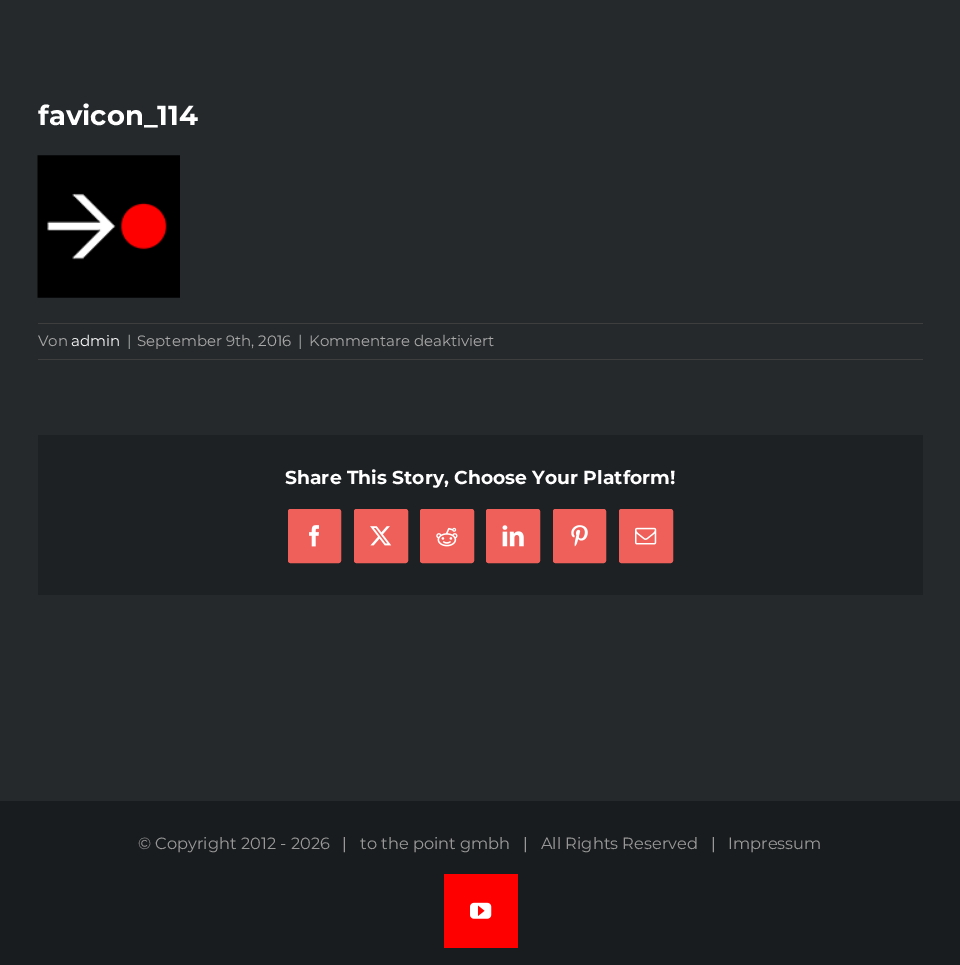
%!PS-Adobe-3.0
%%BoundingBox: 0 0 960 965
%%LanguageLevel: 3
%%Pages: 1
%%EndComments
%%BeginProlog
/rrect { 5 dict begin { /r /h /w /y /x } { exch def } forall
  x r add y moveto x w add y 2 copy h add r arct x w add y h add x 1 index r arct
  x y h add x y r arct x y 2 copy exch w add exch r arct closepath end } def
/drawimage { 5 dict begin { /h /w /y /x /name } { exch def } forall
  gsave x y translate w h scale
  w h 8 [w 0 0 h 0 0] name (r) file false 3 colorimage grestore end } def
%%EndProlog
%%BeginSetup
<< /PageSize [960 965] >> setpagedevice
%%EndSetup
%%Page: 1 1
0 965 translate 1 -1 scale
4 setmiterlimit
0.145 0.161 0.169 setrgbcolor
0 0 960 965 rectfill
(images/1.raw) 37 155 143 143 drawimage
0.243 setgray
38 323 885 1 rectfill
38 359 885 1 rectfill
0.118 0.129 0.137 setrgbcolor
38 435 885 160 rectfill
0.933 0.376 0.349 setrgbcolor
288.5 509.5 52 53 2 rrect gsave fill grestore
stroke
(images/2.raw) 309 525 10 22 drawimage
354.5 509.5 53 53 2 rrect gsave fill grestore
stroke
(images/3.raw) 370 526 22 20 drawimage
420.5 509.5 53 53 2 rrect gsave fill grestore
stroke
(images/4.raw) 436 527 22 20 drawimage
486.5 509.5 53 53 2 rrect gsave fill grestore
stroke
(images/5.raw) 502 525 22 22 drawimage
553.5 509.5 52 53 2 rrect gsave fill grestore
stroke
(images/6.raw) 571 525 17 22 drawimage
619.5 509.5 53 53 2 rrect gsave fill grestore
stroke
(images/7.raw) 635 527 22 18 drawimage
0.098 0.11 0.118 setrgbcolor
0 801 960 164 rectfill
1 0 0 setrgbcolor
444 874 74 74 rectfill
(images/8.raw) 470 902 22 17 drawimage
/Montserrat-Bold [27.5 0 0 -27.5 0 0] selectfont
1 setgray
38 125 moveto (favicon_114) show
/Montserrat-Regular [15 0 0 -15 0 0] selectfont
0.667 0.663 0.663 setrgbcolor
38 346 moveto (Von) show
1 setgray
71 346 moveto (admin) show
0.667 0.663 0.663 setrgbcolor
127 346 moveto (|) show
137 346 moveto (September 9th, 2016) show
298 346 moveto (|) show
309 346 moveto (Kommentare deaktiviert) show
/Montserrat-Bold [18.75 0 0 -18.75 0 0] selectfont
1 setgray
285 484 moveto (Share This Story, Choose Your Platform!) show
/Montserrat-Regular [16.25 0 0 -16.25 0 0] selectfont
0.6 setgray
138 849 moveto (© Copyright 2012 - 2026   |   to the point gmbh   |   All Rights Reserved   |) show
728 849 moveto (Impressum) show
showpage
%%EOF
